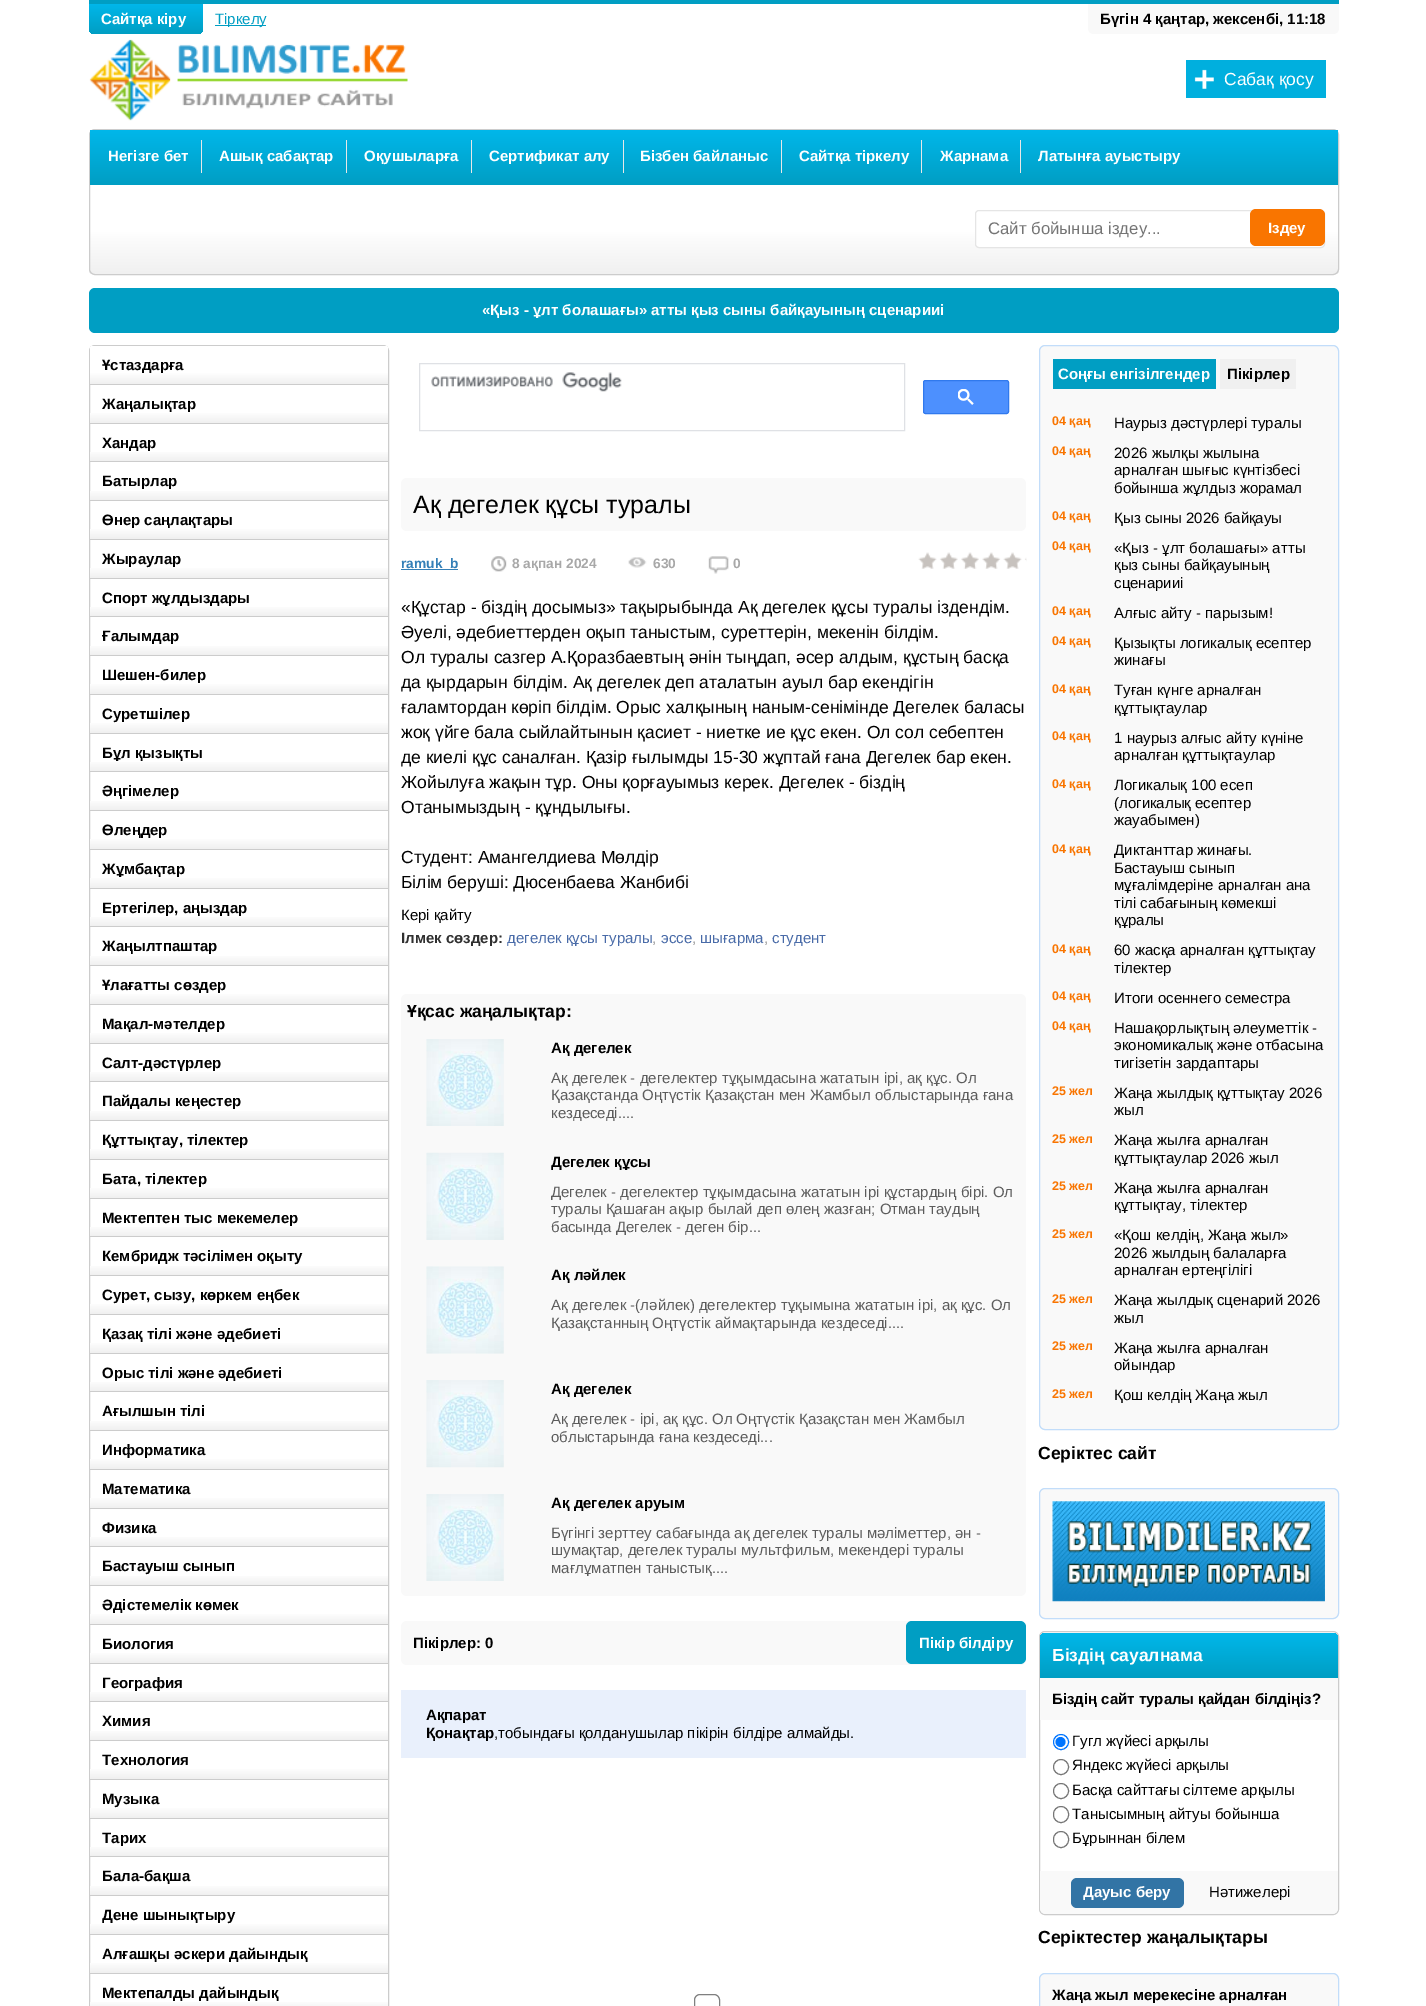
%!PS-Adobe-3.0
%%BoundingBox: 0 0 1426 2006
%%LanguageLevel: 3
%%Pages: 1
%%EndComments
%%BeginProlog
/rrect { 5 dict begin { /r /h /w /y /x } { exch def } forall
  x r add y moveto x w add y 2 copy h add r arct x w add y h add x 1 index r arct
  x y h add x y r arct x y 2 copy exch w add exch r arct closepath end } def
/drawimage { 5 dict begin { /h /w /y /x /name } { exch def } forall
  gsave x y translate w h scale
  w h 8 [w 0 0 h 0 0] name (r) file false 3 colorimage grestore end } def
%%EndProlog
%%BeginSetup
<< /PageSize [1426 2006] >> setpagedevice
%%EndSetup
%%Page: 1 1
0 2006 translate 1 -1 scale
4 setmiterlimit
1 setgray
0 0 1426 2006 rectfill
0 0.62 0.765 setrgbcolor
89 0 1250 4 rectfill
gsave newpath 89 4 moveto 203 4 lineto 203 28 lineto 203 31.5 200.5 34 197 34 curveto 95 34 lineto 91.5 34 89 31.5 89 28 curveto closepath clip newpath
<< /ShadingType 2 /ColorSpace /DeviceRGB /Coords [146 3.7 146 34] /Extend [true true] /Function << /FunctionType 2 /Domain [0 1] /C0 [0 0.718 0.918] /C1 [0 0.62 0.765] /N 1 >> >> shfill grestore
215 25 51 1 rectfill
0.976 setgray
newpath 1088 4 moveto 1339 4 lineto 1339 28 lineto 1339 31.5 1336.5 34 1333 34 curveto 1094 34 lineto 1090.5 34 1088 31.5 1088 28 curveto closepath fill
(images/1.raw) 89 39 319 82 drawimage
0 0.686 0.871 setrgbcolor
1186 60 140 38 rectfill
(images/2.raw) 1194 69 20 20 drawimage
gsave
89 129 1250 146 6 rrect clip newpath
gsave newpath 89 131 moveto 1339 131 lineto 1339 274 lineto 89 274 lineto closepath clip newpath
<< /ShadingType 2 /ColorSpace /DeviceRGB /Coords [714 130 714 274] /Extend [true true] /Function << /FunctionType 3 /Domain [0 1] /Functions [<< /FunctionType 2 /Domain [0 1] /C0 [1 1 1] /C1 [1 1 1] /N 1 >> << /FunctionType 2 /Domain [0 1] /C0 [1 1 1] /C1 [0.941 0.941 0.941] /N 1 >>] /Bounds [0.7] /Encode [0 1 0 1] >> >> shfill grestore
grestore
0.8 setgray
89.5 129.5 1249 145 5.5 rrect stroke
gsave newpath 90 130 moveto 1338 130 lineto 1338 185 lineto 90 185 lineto closepath clip newpath
<< /ShadingType 2 /ColorSpace /DeviceRGB /Coords [714 130 714 185] /Extend [true true] /Function << /FunctionType 2 /Domain [0 1] /C0 [0 0.718 0.918] /C1 [0 0.62 0.765] /N 1 >> >> shfill grestore
0.91 setgray
201 140 1 33 rectfill
346 140 1 33 rectfill
471 140 1 33 rectfill
623 140 1 33 rectfill
781 140 1 33 rectfill
921 140 1 33 rectfill
1020 140 1 33 rectfill
1 setgray
975.5 210.5 349 37 3.5 rrect gsave fill grestore
0.898 setgray
stroke
0.976 0.459 0 setrgbcolor
1250 209 75 37 6 rrect fill
0 0.62 0.765 setrgbcolor
89 288 1250 45 6 rrect fill
0.8 setgray
89.5 345.5 299 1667 5.5 rrect stroke
gsave newpath 95 346 moveto 383 346 lineto 386 346 388 348 388 351 curveto 388 384 lineto 90 384 lineto 90 351 lineto 90 348 92 346 95 346 curveto closepath clip newpath
<< /ShadingType 2 /ColorSpace /DeviceRGB /Coords [239 346 239 384] /Extend [true true] /Function << /FunctionType 3 /Domain [0 1] /Functions [<< /FunctionType 2 /Domain [0 1] /C0 [1 1 1] /C1 [1 1 1] /N 1 >> << /FunctionType 2 /Domain [0 1] /C0 [1 1 1] /C1 [0.941 0.941 0.941] /N 1 >>] /Bounds [0.7] /Encode [0 1 0 1] >> >> shfill grestore
90 384 298 1 rectfill
gsave newpath 90 413 moveto 388 413 lineto 388 423 lineto 90 423 lineto closepath clip newpath
<< /ShadingType 2 /ColorSpace /DeviceRGB /Coords [239 385 239 423] /Extend [true true] /Function << /FunctionType 3 /Domain [0 1] /Functions [<< /FunctionType 2 /Domain [0 1] /C0 [1 1 1] /C1 [1 1 1] /N 1 >> << /FunctionType 2 /Domain [0 1] /C0 [1 1 1] /C1 [0.941 0.941 0.941] /N 1 >>] /Bounds [0.7] /Encode [0 1 0 1] >> >> shfill grestore
90 423 298 1 rectfill
gsave newpath 90 452 moveto 388 452 lineto 388 461 lineto 90 461 lineto closepath clip newpath
<< /ShadingType 2 /ColorSpace /DeviceRGB /Coords [239 424 239 461] /Extend [true true] /Function << /FunctionType 3 /Domain [0 1] /Functions [<< /FunctionType 2 /Domain [0 1] /C0 [1 1 1] /C1 [1 1 1] /N 1 >> << /FunctionType 2 /Domain [0 1] /C0 [1 1 1] /C1 [0.941 0.941 0.941] /N 1 >>] /Bounds [0.7] /Encode [0 1 0 1] >> >> shfill grestore
90 461 298 1 rectfill
gsave newpath 90 491 moveto 388 491 lineto 388 500 lineto 90 500 lineto closepath clip newpath
<< /ShadingType 2 /ColorSpace /DeviceRGB /Coords [239 463 239 500] /Extend [true true] /Function << /FunctionType 3 /Domain [0 1] /Functions [<< /FunctionType 2 /Domain [0 1] /C0 [1 1 1] /C1 [1 1 1] /N 1 >> << /FunctionType 2 /Domain [0 1] /C0 [1 1 1] /C1 [0.941 0.941 0.941] /N 1 >>] /Bounds [0.7] /Encode [0 1 0 1] >> >> shfill grestore
90 500 298 1 rectfill
gsave newpath 90 529 moveto 388 529 lineto 388 539 lineto 90 539 lineto closepath clip newpath
<< /ShadingType 2 /ColorSpace /DeviceRGB /Coords [239 501 239 539] /Extend [true true] /Function << /FunctionType 3 /Domain [0 1] /Functions [<< /FunctionType 2 /Domain [0 1] /C0 [1 1 1] /C1 [1 1 1] /N 1 >> << /FunctionType 2 /Domain [0 1] /C0 [1 1 1] /C1 [0.941 0.941 0.941] /N 1 >>] /Bounds [0.7] /Encode [0 1 0 1] >> >> shfill grestore
90 539 298 1 rectfill
gsave newpath 90 568 moveto 388 568 lineto 388 578 lineto 90 578 lineto closepath clip newpath
<< /ShadingType 2 /ColorSpace /DeviceRGB /Coords [239 540 239 578] /Extend [true true] /Function << /FunctionType 3 /Domain [0 1] /Functions [<< /FunctionType 2 /Domain [0 1] /C0 [1 1 1] /C1 [1 1 1] /N 1 >> << /FunctionType 2 /Domain [0 1] /C0 [1 1 1] /C1 [0.941 0.941 0.941] /N 1 >>] /Bounds [0.7] /Encode [0 1 0 1] >> >> shfill grestore
90 578 298 1 rectfill
gsave newpath 90 607 moveto 388 607 lineto 388 616 lineto 90 616 lineto closepath clip newpath
<< /ShadingType 2 /ColorSpace /DeviceRGB /Coords [239 579 239 616] /Extend [true true] /Function << /FunctionType 3 /Domain [0 1] /Functions [<< /FunctionType 2 /Domain [0 1] /C0 [1 1 1] /C1 [1 1 1] /N 1 >> << /FunctionType 2 /Domain [0 1] /C0 [1 1 1] /C1 [0.941 0.941 0.941] /N 1 >>] /Bounds [0.7] /Encode [0 1 0 1] >> >> shfill grestore
90 616 298 1 rectfill
gsave newpath 90 646 moveto 388 646 lineto 388 655 lineto 90 655 lineto closepath clip newpath
<< /ShadingType 2 /ColorSpace /DeviceRGB /Coords [239 618 239 655] /Extend [true true] /Function << /FunctionType 3 /Domain [0 1] /Functions [<< /FunctionType 2 /Domain [0 1] /C0 [1 1 1] /C1 [1 1 1] /N 1 >> << /FunctionType 2 /Domain [0 1] /C0 [1 1 1] /C1 [0.941 0.941 0.941] /N 1 >>] /Bounds [0.7] /Encode [0 1 0 1] >> >> shfill grestore
90 655 298 1 rectfill
gsave newpath 90 684 moveto 388 684 lineto 388 694 lineto 90 694 lineto closepath clip newpath
<< /ShadingType 2 /ColorSpace /DeviceRGB /Coords [239 656 239 694] /Extend [true true] /Function << /FunctionType 3 /Domain [0 1] /Functions [<< /FunctionType 2 /Domain [0 1] /C0 [1 1 1] /C1 [1 1 1] /N 1 >> << /FunctionType 2 /Domain [0 1] /C0 [1 1 1] /C1 [0.941 0.941 0.941] /N 1 >>] /Bounds [0.7] /Encode [0 1 0 1] >> >> shfill grestore
90 694 298 1 rectfill
gsave newpath 90 723 moveto 388 723 lineto 388 733 lineto 90 733 lineto closepath clip newpath
<< /ShadingType 2 /ColorSpace /DeviceRGB /Coords [239 695 239 733] /Extend [true true] /Function << /FunctionType 3 /Domain [0 1] /Functions [<< /FunctionType 2 /Domain [0 1] /C0 [1 1 1] /C1 [1 1 1] /N 1 >> << /FunctionType 2 /Domain [0 1] /C0 [1 1 1] /C1 [0.941 0.941 0.941] /N 1 >>] /Bounds [0.7] /Encode [0 1 0 1] >> >> shfill grestore
90 733 298 1 rectfill
gsave newpath 90 762 moveto 388 762 lineto 388 771 lineto 90 771 lineto closepath clip newpath
<< /ShadingType 2 /ColorSpace /DeviceRGB /Coords [239 734 239 771] /Extend [true true] /Function << /FunctionType 3 /Domain [0 1] /Functions [<< /FunctionType 2 /Domain [0 1] /C0 [1 1 1] /C1 [1 1 1] /N 1 >> << /FunctionType 2 /Domain [0 1] /C0 [1 1 1] /C1 [0.941 0.941 0.941] /N 1 >>] /Bounds [0.7] /Encode [0 1 0 1] >> >> shfill grestore
90 771 298 1 rectfill
gsave newpath 90 801 moveto 388 801 lineto 388 810 lineto 90 810 lineto closepath clip newpath
<< /ShadingType 2 /ColorSpace /DeviceRGB /Coords [239 773 239 810] /Extend [true true] /Function << /FunctionType 3 /Domain [0 1] /Functions [<< /FunctionType 2 /Domain [0 1] /C0 [1 1 1] /C1 [1 1 1] /N 1 >> << /FunctionType 2 /Domain [0 1] /C0 [1 1 1] /C1 [0.941 0.941 0.941] /N 1 >>] /Bounds [0.7] /Encode [0 1 0 1] >> >> shfill grestore
90 810 298 1 rectfill
gsave newpath 90 839 moveto 388 839 lineto 388 849 lineto 90 849 lineto closepath clip newpath
<< /ShadingType 2 /ColorSpace /DeviceRGB /Coords [239 811 239 849] /Extend [true true] /Function << /FunctionType 3 /Domain [0 1] /Functions [<< /FunctionType 2 /Domain [0 1] /C0 [1 1 1] /C1 [1 1 1] /N 1 >> << /FunctionType 2 /Domain [0 1] /C0 [1 1 1] /C1 [0.941 0.941 0.941] /N 1 >>] /Bounds [0.7] /Encode [0 1 0 1] >> >> shfill grestore
90 849 298 1 rectfill
gsave newpath 90 878 moveto 388 878 lineto 388 888 lineto 90 888 lineto closepath clip newpath
<< /ShadingType 2 /ColorSpace /DeviceRGB /Coords [239 850 239 888] /Extend [true true] /Function << /FunctionType 3 /Domain [0 1] /Functions [<< /FunctionType 2 /Domain [0 1] /C0 [1 1 1] /C1 [1 1 1] /N 1 >> << /FunctionType 2 /Domain [0 1] /C0 [1 1 1] /C1 [0.941 0.941 0.941] /N 1 >>] /Bounds [0.7] /Encode [0 1 0 1] >> >> shfill grestore
90 888 298 1 rectfill
gsave newpath 90 917 moveto 388 917 lineto 388 926 lineto 90 926 lineto closepath clip newpath
<< /ShadingType 2 /ColorSpace /DeviceRGB /Coords [239 889 239 926] /Extend [true true] /Function << /FunctionType 3 /Domain [0 1] /Functions [<< /FunctionType 2 /Domain [0 1] /C0 [1 1 1] /C1 [1 1 1] /N 1 >> << /FunctionType 2 /Domain [0 1] /C0 [1 1 1] /C1 [0.941 0.941 0.941] /N 1 >>] /Bounds [0.7] /Encode [0 1 0 1] >> >> shfill grestore
90 926 298 1 rectfill
gsave newpath 90 956 moveto 388 956 lineto 388 965 lineto 90 965 lineto closepath clip newpath
<< /ShadingType 2 /ColorSpace /DeviceRGB /Coords [239 928 239 965] /Extend [true true] /Function << /FunctionType 3 /Domain [0 1] /Functions [<< /FunctionType 2 /Domain [0 1] /C0 [1 1 1] /C1 [1 1 1] /N 1 >> << /FunctionType 2 /Domain [0 1] /C0 [1 1 1] /C1 [0.941 0.941 0.941] /N 1 >>] /Bounds [0.7] /Encode [0 1 0 1] >> >> shfill grestore
90 965 298 1 rectfill
gsave newpath 90 994 moveto 388 994 lineto 388 1004 lineto 90 1004 lineto closepath clip newpath
<< /ShadingType 2 /ColorSpace /DeviceRGB /Coords [239 966 239 1004] /Extend [true true] /Function << /FunctionType 3 /Domain [0 1] /Functions [<< /FunctionType 2 /Domain [0 1] /C0 [1 1 1] /C1 [1 1 1] /N 1 >> << /FunctionType 2 /Domain [0 1] /C0 [1 1 1] /C1 [0.941 0.941 0.941] /N 1 >>] /Bounds [0.7] /Encode [0 1 0 1] >> >> shfill grestore
90 1004 298 1 rectfill
gsave newpath 90 1033 moveto 388 1033 lineto 388 1043 lineto 90 1043 lineto closepath clip newpath
<< /ShadingType 2 /ColorSpace /DeviceRGB /Coords [239 1005 239 1043] /Extend [true true] /Function << /FunctionType 3 /Domain [0 1] /Functions [<< /FunctionType 2 /Domain [0 1] /C0 [1 1 1] /C1 [1 1 1] /N 1 >> << /FunctionType 2 /Domain [0 1] /C0 [1 1 1] /C1 [0.941 0.941 0.941] /N 1 >>] /Bounds [0.7] /Encode [0 1 0 1] >> >> shfill grestore
90 1043 298 1 rectfill
gsave newpath 90 1072 moveto 388 1072 lineto 388 1081 lineto 90 1081 lineto closepath clip newpath
<< /ShadingType 2 /ColorSpace /DeviceRGB /Coords [239 1044 239 1081] /Extend [true true] /Function << /FunctionType 3 /Domain [0 1] /Functions [<< /FunctionType 2 /Domain [0 1] /C0 [1 1 1] /C1 [1 1 1] /N 1 >> << /FunctionType 2 /Domain [0 1] /C0 [1 1 1] /C1 [0.941 0.941 0.941] /N 1 >>] /Bounds [0.7] /Encode [0 1 0 1] >> >> shfill grestore
90 1081 298 1 rectfill
gsave newpath 90 1111 moveto 388 1111 lineto 388 1120 lineto 90 1120 lineto closepath clip newpath
<< /ShadingType 2 /ColorSpace /DeviceRGB /Coords [239 1083 239 1120] /Extend [true true] /Function << /FunctionType 3 /Domain [0 1] /Functions [<< /FunctionType 2 /Domain [0 1] /C0 [1 1 1] /C1 [1 1 1] /N 1 >> << /FunctionType 2 /Domain [0 1] /C0 [1 1 1] /C1 [0.941 0.941 0.941] /N 1 >>] /Bounds [0.7] /Encode [0 1 0 1] >> >> shfill grestore
90 1120 298 1 rectfill
gsave newpath 90 1149 moveto 388 1149 lineto 388 1159 lineto 90 1159 lineto closepath clip newpath
<< /ShadingType 2 /ColorSpace /DeviceRGB /Coords [239 1121 239 1159] /Extend [true true] /Function << /FunctionType 3 /Domain [0 1] /Functions [<< /FunctionType 2 /Domain [0 1] /C0 [1 1 1] /C1 [1 1 1] /N 1 >> << /FunctionType 2 /Domain [0 1] /C0 [1 1 1] /C1 [0.941 0.941 0.941] /N 1 >>] /Bounds [0.7] /Encode [0 1 0 1] >> >> shfill grestore
90 1159 298 1 rectfill
gsave newpath 90 1188 moveto 388 1188 lineto 388 1198 lineto 90 1198 lineto closepath clip newpath
<< /ShadingType 2 /ColorSpace /DeviceRGB /Coords [239 1160 239 1198] /Extend [true true] /Function << /FunctionType 3 /Domain [0 1] /Functions [<< /FunctionType 2 /Domain [0 1] /C0 [1 1 1] /C1 [1 1 1] /N 1 >> << /FunctionType 2 /Domain [0 1] /C0 [1 1 1] /C1 [0.941 0.941 0.941] /N 1 >>] /Bounds [0.7] /Encode [0 1 0 1] >> >> shfill grestore
90 1198 298 1 rectfill
gsave newpath 90 1227 moveto 388 1227 lineto 388 1236 lineto 90 1236 lineto closepath clip newpath
<< /ShadingType 2 /ColorSpace /DeviceRGB /Coords [239 1199 239 1236] /Extend [true true] /Function << /FunctionType 3 /Domain [0 1] /Functions [<< /FunctionType 2 /Domain [0 1] /C0 [1 1 1] /C1 [1 1 1] /N 1 >> << /FunctionType 2 /Domain [0 1] /C0 [1 1 1] /C1 [0.941 0.941 0.941] /N 1 >>] /Bounds [0.7] /Encode [0 1 0 1] >> >> shfill grestore
90 1236 298 1 rectfill
gsave newpath 90 1266 moveto 388 1266 lineto 388 1275 lineto 90 1275 lineto closepath clip newpath
<< /ShadingType 2 /ColorSpace /DeviceRGB /Coords [239 1238 239 1275] /Extend [true true] /Function << /FunctionType 3 /Domain [0 1] /Functions [<< /FunctionType 2 /Domain [0 1] /C0 [1 1 1] /C1 [1 1 1] /N 1 >> << /FunctionType 2 /Domain [0 1] /C0 [1 1 1] /C1 [0.941 0.941 0.941] /N 1 >>] /Bounds [0.7] /Encode [0 1 0 1] >> >> shfill grestore
90 1275 298 1 rectfill
gsave newpath 90 1304 moveto 388 1304 lineto 388 1314 lineto 90 1314 lineto closepath clip newpath
<< /ShadingType 2 /ColorSpace /DeviceRGB /Coords [239 1276 239 1314] /Extend [true true] /Function << /FunctionType 3 /Domain [0 1] /Functions [<< /FunctionType 2 /Domain [0 1] /C0 [1 1 1] /C1 [1 1 1] /N 1 >> << /FunctionType 2 /Domain [0 1] /C0 [1 1 1] /C1 [0.941 0.941 0.941] /N 1 >>] /Bounds [0.7] /Encode [0 1 0 1] >> >> shfill grestore
90 1314 298 1 rectfill
gsave newpath 90 1343 moveto 388 1343 lineto 388 1353 lineto 90 1353 lineto closepath clip newpath
<< /ShadingType 2 /ColorSpace /DeviceRGB /Coords [239 1315 239 1353] /Extend [true true] /Function << /FunctionType 3 /Domain [0 1] /Functions [<< /FunctionType 2 /Domain [0 1] /C0 [1 1 1] /C1 [1 1 1] /N 1 >> << /FunctionType 2 /Domain [0 1] /C0 [1 1 1] /C1 [0.941 0.941 0.941] /N 1 >>] /Bounds [0.7] /Encode [0 1 0 1] >> >> shfill grestore
90 1353 298 1 rectfill
gsave newpath 90 1382 moveto 388 1382 lineto 388 1391 lineto 90 1391 lineto closepath clip newpath
<< /ShadingType 2 /ColorSpace /DeviceRGB /Coords [239 1354 239 1391] /Extend [true true] /Function << /FunctionType 3 /Domain [0 1] /Functions [<< /FunctionType 2 /Domain [0 1] /C0 [1 1 1] /C1 [1 1 1] /N 1 >> << /FunctionType 2 /Domain [0 1] /C0 [1 1 1] /C1 [0.941 0.941 0.941] /N 1 >>] /Bounds [0.7] /Encode [0 1 0 1] >> >> shfill grestore
90 1391 298 1 rectfill
gsave newpath 90 1421 moveto 388 1421 lineto 388 1430 lineto 90 1430 lineto closepath clip newpath
<< /ShadingType 2 /ColorSpace /DeviceRGB /Coords [239 1393 239 1430] /Extend [true true] /Function << /FunctionType 3 /Domain [0 1] /Functions [<< /FunctionType 2 /Domain [0 1] /C0 [1 1 1] /C1 [1 1 1] /N 1 >> << /FunctionType 2 /Domain [0 1] /C0 [1 1 1] /C1 [0.941 0.941 0.941] /N 1 >>] /Bounds [0.7] /Encode [0 1 0 1] >> >> shfill grestore
90 1430 298 1 rectfill
gsave newpath 90 1459 moveto 388 1459 lineto 388 1469 lineto 90 1469 lineto closepath clip newpath
<< /ShadingType 2 /ColorSpace /DeviceRGB /Coords [239 1431 239 1469] /Extend [true true] /Function << /FunctionType 3 /Domain [0 1] /Functions [<< /FunctionType 2 /Domain [0 1] /C0 [1 1 1] /C1 [1 1 1] /N 1 >> << /FunctionType 2 /Domain [0 1] /C0 [1 1 1] /C1 [0.941 0.941 0.941] /N 1 >>] /Bounds [0.7] /Encode [0 1 0 1] >> >> shfill grestore
90 1469 298 1 rectfill
gsave newpath 90 1498 moveto 388 1498 lineto 388 1508 lineto 90 1508 lineto closepath clip newpath
<< /ShadingType 2 /ColorSpace /DeviceRGB /Coords [239 1470 239 1508] /Extend [true true] /Function << /FunctionType 3 /Domain [0 1] /Functions [<< /FunctionType 2 /Domain [0 1] /C0 [1 1 1] /C1 [1 1 1] /N 1 >> << /FunctionType 2 /Domain [0 1] /C0 [1 1 1] /C1 [0.941 0.941 0.941] /N 1 >>] /Bounds [0.7] /Encode [0 1 0 1] >> >> shfill grestore
90 1508 298 1 rectfill
gsave newpath 90 1537 moveto 388 1537 lineto 388 1546 lineto 90 1546 lineto closepath clip newpath
<< /ShadingType 2 /ColorSpace /DeviceRGB /Coords [239 1509 239 1546] /Extend [true true] /Function << /FunctionType 3 /Domain [0 1] /Functions [<< /FunctionType 2 /Domain [0 1] /C0 [1 1 1] /C1 [1 1 1] /N 1 >> << /FunctionType 2 /Domain [0 1] /C0 [1 1 1] /C1 [0.941 0.941 0.941] /N 1 >>] /Bounds [0.7] /Encode [0 1 0 1] >> >> shfill grestore
90 1546 298 1 rectfill
gsave newpath 90 1576 moveto 388 1576 lineto 388 1585 lineto 90 1585 lineto closepath clip newpath
<< /ShadingType 2 /ColorSpace /DeviceRGB /Coords [239 1548 239 1585] /Extend [true true] /Function << /FunctionType 3 /Domain [0 1] /Functions [<< /FunctionType 2 /Domain [0 1] /C0 [1 1 1] /C1 [1 1 1] /N 1 >> << /FunctionType 2 /Domain [0 1] /C0 [1 1 1] /C1 [0.941 0.941 0.941] /N 1 >>] /Bounds [0.7] /Encode [0 1 0 1] >> >> shfill grestore
90 1585 298 1 rectfill
gsave newpath 90 1614 moveto 388 1614 lineto 388 1624 lineto 90 1624 lineto closepath clip newpath
<< /ShadingType 2 /ColorSpace /DeviceRGB /Coords [239 1586 239 1624] /Extend [true true] /Function << /FunctionType 3 /Domain [0 1] /Functions [<< /FunctionType 2 /Domain [0 1] /C0 [1 1 1] /C1 [1 1 1] /N 1 >> << /FunctionType 2 /Domain [0 1] /C0 [1 1 1] /C1 [0.941 0.941 0.941] /N 1 >>] /Bounds [0.7] /Encode [0 1 0 1] >> >> shfill grestore
90 1624 298 1 rectfill
gsave newpath 90 1653 moveto 388 1653 lineto 388 1663 lineto 90 1663 lineto closepath clip newpath
<< /ShadingType 2 /ColorSpace /DeviceRGB /Coords [239 1625 239 1663] /Extend [true true] /Function << /FunctionType 3 /Domain [0 1] /Functions [<< /FunctionType 2 /Domain [0 1] /C0 [1 1 1] /C1 [1 1 1] /N 1 >> << /FunctionType 2 /Domain [0 1] /C0 [1 1 1] /C1 [0.941 0.941 0.941] /N 1 >>] /Bounds [0.7] /Encode [0 1 0 1] >> >> shfill grestore
90 1663 298 1 rectfill
gsave newpath 90 1692 moveto 388 1692 lineto 388 1701 lineto 90 1701 lineto closepath clip newpath
<< /ShadingType 2 /ColorSpace /DeviceRGB /Coords [239 1664 239 1701] /Extend [true true] /Function << /FunctionType 3 /Domain [0 1] /Functions [<< /FunctionType 2 /Domain [0 1] /C0 [1 1 1] /C1 [1 1 1] /N 1 >> << /FunctionType 2 /Domain [0 1] /C0 [1 1 1] /C1 [0.941 0.941 0.941] /N 1 >>] /Bounds [0.7] /Encode [0 1 0 1] >> >> shfill grestore
90 1701 298 1 rectfill
gsave newpath 90 1731 moveto 388 1731 lineto 388 1740 lineto 90 1740 lineto closepath clip newpath
<< /ShadingType 2 /ColorSpace /DeviceRGB /Coords [239 1703 239 1740] /Extend [true true] /Function << /FunctionType 3 /Domain [0 1] /Functions [<< /FunctionType 2 /Domain [0 1] /C0 [1 1 1] /C1 [1 1 1] /N 1 >> << /FunctionType 2 /Domain [0 1] /C0 [1 1 1] /C1 [0.941 0.941 0.941] /N 1 >>] /Bounds [0.7] /Encode [0 1 0 1] >> >> shfill grestore
90 1740 298 1 rectfill
gsave newpath 90 1769 moveto 388 1769 lineto 388 1779 lineto 90 1779 lineto closepath clip newpath
<< /ShadingType 2 /ColorSpace /DeviceRGB /Coords [239 1741 239 1779] /Extend [true true] /Function << /FunctionType 3 /Domain [0 1] /Functions [<< /FunctionType 2 /Domain [0 1] /C0 [1 1 1] /C1 [1 1 1] /N 1 >> << /FunctionType 2 /Domain [0 1] /C0 [1 1 1] /C1 [0.941 0.941 0.941] /N 1 >>] /Bounds [0.7] /Encode [0 1 0 1] >> >> shfill grestore
90 1779 298 1 rectfill
gsave newpath 90 1808 moveto 388 1808 lineto 388 1818 lineto 90 1818 lineto closepath clip newpath
<< /ShadingType 2 /ColorSpace /DeviceRGB /Coords [239 1780 239 1818] /Extend [true true] /Function << /FunctionType 3 /Domain [0 1] /Functions [<< /FunctionType 2 /Domain [0 1] /C0 [1 1 1] /C1 [1 1 1] /N 1 >> << /FunctionType 2 /Domain [0 1] /C0 [1 1 1] /C1 [0.941 0.941 0.941] /N 1 >>] /Bounds [0.7] /Encode [0 1 0 1] >> >> shfill grestore
90 1818 298 1 rectfill
gsave newpath 90 1847 moveto 388 1847 lineto 388 1856 lineto 90 1856 lineto closepath clip newpath
<< /ShadingType 2 /ColorSpace /DeviceRGB /Coords [239 1819 239 1856] /Extend [true true] /Function << /FunctionType 3 /Domain [0 1] /Functions [<< /FunctionType 2 /Domain [0 1] /C0 [1 1 1] /C1 [1 1 1] /N 1 >> << /FunctionType 2 /Domain [0 1] /C0 [1 1 1] /C1 [0.941 0.941 0.941] /N 1 >>] /Bounds [0.7] /Encode [0 1 0 1] >> >> shfill grestore
90 1856 298 1 rectfill
gsave newpath 90 1886 moveto 388 1886 lineto 388 1895 lineto 90 1895 lineto closepath clip newpath
<< /ShadingType 2 /ColorSpace /DeviceRGB /Coords [239 1858 239 1895] /Extend [true true] /Function << /FunctionType 3 /Domain [0 1] /Functions [<< /FunctionType 2 /Domain [0 1] /C0 [1 1 1] /C1 [1 1 1] /N 1 >> << /FunctionType 2 /Domain [0 1] /C0 [1 1 1] /C1 [0.941 0.941 0.941] /N 1 >>] /Bounds [0.7] /Encode [0 1 0 1] >> >> shfill grestore
90 1895 298 1 rectfill
gsave newpath 90 1924 moveto 388 1924 lineto 388 1934 lineto 90 1934 lineto closepath clip newpath
<< /ShadingType 2 /ColorSpace /DeviceRGB /Coords [239 1896 239 1934] /Extend [true true] /Function << /FunctionType 3 /Domain [0 1] /Functions [<< /FunctionType 2 /Domain [0 1] /C0 [1 1 1] /C1 [1 1 1] /N 1 >> << /FunctionType 2 /Domain [0 1] /C0 [1 1 1] /C1 [0.941 0.941 0.941] /N 1 >>] /Bounds [0.7] /Encode [0 1 0 1] >> >> shfill grestore
90 1934 298 1 rectfill
gsave newpath 90 1963 moveto 388 1963 lineto 388 1973 lineto 90 1973 lineto closepath clip newpath
<< /ShadingType 2 /ColorSpace /DeviceRGB /Coords [239 1935 239 1973] /Extend [true true] /Function << /FunctionType 3 /Domain [0 1] /Functions [<< /FunctionType 2 /Domain [0 1] /C0 [1 1 1] /C1 [1 1 1] /N 1 >> << /FunctionType 2 /Domain [0 1] /C0 [1 1 1] /C1 [0.941 0.941 0.941] /N 1 >>] /Bounds [0.7] /Encode [0 1 0 1] >> >> shfill grestore
90 1973 298 1 rectfill
gsave newpath 90 2002 moveto 388 2002 lineto 388 2006 lineto 90 2006 lineto closepath clip newpath
<< /ShadingType 2 /ColorSpace /DeviceRGB /Coords [239 1974 239 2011] /Extend [true true] /Function << /FunctionType 3 /Domain [0 1] /Functions [<< /FunctionType 2 /Domain [0 1] /C0 [1 1 1] /C1 [1 1 1] /N 1 >> << /FunctionType 2 /Domain [0 1] /C0 [1 1 1] /C1 [0.941 0.941 0.941] /N 1 >>] /Bounds [0.7] /Encode [0 1 0 1] >> >> shfill grestore
0.875 0.882 0.898 setrgbcolor
419.5 363.5 485 67 rectstroke
(images/3.raw) 431 372 191 20 drawimage
0.302 0.565 0.996 setrgbcolor
923.5 380.5 85 33 2 rrect gsave fill grestore
0.188 0.475 0.929 setrgbcolor
stroke
(images/4.raw) 958 389 16 16 drawimage
0.976 setgray
401 478 625 53 6 rrect fill
0.204 0.498 0.718 setrgbcolor
401 569 57 1 rectfill
(images/5.raw) 491 556 16 16 drawimage
(images/6.raw) 628 557 19 11 drawimage
(images/7.raw) 708 556 21 18 drawimage
(images/8.raw) 918 552 109 17 drawimage
0.976 setgray
401 994 625 602 6 rrect fill
(images/9.raw) 426 1039 78 87 drawimage
(images/10.raw) 426 1152 78 88 drawimage
(images/11.raw) 426 1266 78 88 drawimage
(images/12.raw) 426 1380 78 88 drawimage
(images/9.raw) 426 1494 78 87 drawimage
401 1621 625 44 6 rrect fill
0 0.62 0.765 setrgbcolor
906 1621 120 43 6 rrect fill
0.914 0.941 0.988 setrgbcolor
401 1690 625 68 rectfill
0.976 setgray
1039.5 345.5 299 1084 5.5 rrect gsave fill grestore
0.761 0.867 0.98 setrgbcolor
stroke
0 0.62 0.765 setrgbcolor
1053 359 163 30 rectfill
0.941 setgray
1220 359 76 30 rectfill
0.976 setgray
1039.5 1488.5 299 130 5.5 rrect gsave fill grestore
0.761 0.867 0.98 setrgbcolor
stroke
(images/13.raw) 1052 1501 273 101 drawimage
0.8 setgray
1039.5 1631.5 299 283 5.5 rrect stroke
gsave newpath 1046 1633 moveto 1332 1633 lineto 1335.5 1633 1338 1635.5 1338 1639 curveto 1338 1678 lineto 1040 1678 lineto 1040 1639 lineto 1040 1635.5 1042.5 1633 1046 1633 curveto closepath clip newpath
<< /ShadingType 2 /ColorSpace /DeviceRGB /Coords [1189 1633 1189 1678] /Extend [true true] /Function << /FunctionType 2 /Domain [0 1] /C0 [0 0.718 0.918] /C1 [0 0.62 0.765] /N 1 >> >> shfill grestore
0.976 setgray
1040 1678 298 42 rectfill
0 0.459 1 setrgbcolor
newpath 1061 1742 7.5 0 360 arc closepath stroke
newpath 1060.5 1742 5 0 360 arc closepath fill
0.463 setgray
newpath 1061 1767 7.5 0 360 arc closepath stroke
newpath 1061 1791 7.5 0 360 arc closepath stroke
1053.5 1806.5 15 16 7.5 rrect stroke
1053.5 1831.5 15 16 7.5 rrect stroke
0.976 setgray
newpath 1040 1871 moveto 1338 1871 lineto 1338 1908 lineto 1338 1911.5 1335.5 1914 1332 1914 curveto 1046 1914 lineto 1042.5 1914 1040 1911.5 1040 1908 curveto closepath fill
0.196 0.455 0.647 setrgbcolor
1071 1878 113 30 6 rrect fill
0.976 setgray
1039.5 1973.5 299 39 5.5 rrect gsave fill grestore
0.761 0.867 0.98 setrgbcolor
stroke
0.502 setgray
694.5 1994.5 25 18 5.5 rrect stroke
/LiberationSans-Bold [15 0 0 -15 0 0] selectfont
1 setgray
101 24 moveto (Сайтқа кіру) show
/LiberationSans-Regular [15 0 0 -15 0 0] selectfont
0 0.62 0.765 setrgbcolor
215 24 moveto (Тіркелу) show
/LiberationSans-Bold [15 0 0 -15 0 0] selectfont
0 setgray
1100 24 moveto (Бүгін 4 қаңтар, жексенбі, 11:18) show
/LiberationSans-Regular [17.5 0 0 -17.5 0 0] selectfont
1 setgray
1224 85 moveto (Сабақ қосу) show
/LiberationSans-Bold [15 0 0 -15 0 0] selectfont
108 161 moveto (Негізге бет) show
219 161 moveto (Ашық сабақтар) show
364 161 moveto (Оқушыларға) show
489 161 moveto (Сертификат алу) show
640 161 moveto (Бізбен байланыс) show
799 161 moveto (Сайтқа тіркелу) show
940 161 moveto (Жарнама) show
1038 161 moveto (Латынға ауыстыру) show
/LiberationSans-Regular [16.75 0 0 -16.75 0 0] selectfont
0.459 setgray
988 234 moveto (Сайт бойынша іздеу...) show
/LiberationSans-Bold [15 0 0 -15 0 0] selectfont
1 setgray
1268 233 moveto (Іздеу) show
482 315 moveto («Қыз - ұлт болашағы» атты қыз сыны байқауының сценарииі) show
0 setgray
102 370 moveto (Ұстаздарға) show
102 409 moveto (Жаңалықтар) show
102 448 moveto (Хандар) show
102 486 moveto (Батырлар) show
102 525 moveto (Өнер саңлақтары) show
102 564 moveto (Жыраулар) show
102 603 moveto (Спорт жұлдыздары) show
102 641 moveto (Ғалымдар) show
102 680 moveto (Шешен-билер) show
102 719 moveto (Суретшілер) show
102 758 moveto (Бұл қызықты) show
102 796 moveto (Әңгімелер) show
102 835 moveto (Өлеңдер) show
102 874 moveto (Жұмбақтар) show
102 913 moveto (Ертегілер, аңыздар) show
102 951 moveto (Жаңылтпаштар) show
102 990 moveto (Ұлағатты сөздер) show
102 1029 moveto (Мақал-мәтелдер) show
102 1068 moveto (Салт-дәстүрлер) show
102 1106 moveto (Пайдалы кеңестер) show
102 1145 moveto (Құттықтау, тілектер) show
102 1184 moveto (Бата, тілектер) show
102 1223 moveto (Мектептен тыс мекемелер) show
102 1261 moveto (Кембридж тәсілімен оқыту) show
102 1300 moveto (Сурет, сызу, көркем еңбек) show
102 1339 moveto (Қазақ тілі және әдебиеті) show
102 1378 moveto (Орыс тілі және әдебиеті) show
102 1416 moveto (Ағылшын тілі) show
102 1455 moveto (Информатика) show
102 1494 moveto (Математика) show
102 1533 moveto (Физика) show
102 1571 moveto (Бастауыш сынып) show
102 1610 moveto (Әдістемелік көмек) show
102 1649 moveto (Биология) show
102 1688 moveto (География) show
102 1726 moveto (Химия) show
102 1765 moveto (Технология) show
102 1804 moveto (Музыка) show
102 1843 moveto (Тарих) show
102 1881 moveto (Бала-бақша) show
102 1920 moveto (Дене шынықтыру) show
102 1959 moveto (Алғашқы әскери дайындық) show
102 1998 moveto (Мектепалды дайындық) show
/LiberationSans-Regular [25 0 0 -25 0 0] selectfont
413 513 moveto (Ақ дегелек құсы туралы) show
/LiberationSans-Bold [13.75 0 0 -13.75 0 0] selectfont
0.204 0.498 0.718 setrgbcolor
401 568 moveto (ramuk_b) show
0.659 setgray
512 568 moveto (8 ақпан 2024) show
653 568 moveto (630) show
733 568 moveto (0) show
/LiberationSans-Regular [17.5 0 0 -17.5 0 0] selectfont
0 setgray
401 613 moveto («Құстар - біздің досымыз» тақырыбында Ақ дегелек құсы туралы іздендім.) show
401 638 moveto (Әуелі, әдебиеттерден оқып таныстым, суреттерін, мекенін білдім.) show
401 663 moveto (Ол туралы сазгер А.Қоразбаевтың әнін тыңдап, әсер алдым, құстың басқа) show
401 688 moveto (да қырдарын білдім. Ақ дегелек деп аталатын ауыл бар екендігін) show
401 713 moveto (ғаламтордан көріп білдім. Орыс халқының наным-сенімінде Дегелек баласы) show
401 738 moveto (жоқ үйге бала сыйлайтынын қасиет - ниетке ие құс екен. Ол сол себептен) show
401 763 moveto (де киелі құс саналған. Қазір ғылымды 15-30 жұптай ғана Дегелек бар екен.) show
401 788 moveto (Жойылуға жақын тұр. Оны қорғауымыз керек. Дегелек - біздің) show
401 813 moveto (Отанымыздың - құндылығы.) show
401 863 moveto (Студент: Амангелдиева Мөлдір) show
401 888 moveto (Білім беруші: Дюсенбаева Жанбибі) show
/LiberationSans-Regular [15 0 0 -15 0 0] selectfont
401 920 moveto (Кері қайту) show
/LiberationSans-Bold [15 0 0 -15 0 0] selectfont
0.188 setgray
401 943 moveto (Ілмек сөздер:) show
/LiberationSans-Regular [15 0 0 -15 0 0] selectfont
0.286 0.42 0.659 setrgbcolor
507 943 moveto (дегелек құсы туралы) show
0.565 setgray
652 943 moveto (,) show
0.286 0.42 0.659 setrgbcolor
661 943 moveto (эссе) show
0.565 setgray
692 943 moveto (,) show
0.286 0.42 0.659 setrgbcolor
700 943 moveto (шығарма) show
0.565 setgray
764 943 moveto (,) show
0.286 0.42 0.659 setrgbcolor
772 943 moveto (студент) show
/LiberationSans-Bold [17.5 0 0 -17.5 0 0] selectfont
0 setgray
407 1017 moveto (Ұқсас жаңалықтар:) show
/LiberationSans-Bold [15 0 0 -15 0 0] selectfont
551 1053 moveto (Ақ дегелек) show
/LiberationSans-Regular [15 0 0 -15 0 0] selectfont
0.361 setgray
551 1083 moveto (Ақ дегелек - дегелектер тұқымдасына жататын ірі, ақ құс. Ол) show
551 1100 moveto (Қазақстанда Оңтүстік Қазақстан мен Жамбыл облыстарында ғана) show
551 1118 moveto (кездеседі....) show
/LiberationSans-Bold [15 0 0 -15 0 0] selectfont
0 setgray
551 1167 moveto (Дегелек құсы) show
/LiberationSans-Regular [15 0 0 -15 0 0] selectfont
0.361 setgray
551 1197 moveto (Дегелек - дегелектер тұқымдасына жататын ірі құстардың бірі. Ол) show
551 1214 moveto (туралы Қашаған ақыр былай деп өлең жазған; Отман таудың) show
551 1232 moveto (басында Дегелек - деген бір...) show
/LiberationSans-Bold [15 0 0 -15 0 0] selectfont
0 setgray
551 1280 moveto (Ақ ләйлек) show
/LiberationSans-Regular [15 0 0 -15 0 0] selectfont
0.361 setgray
551 1310 moveto (Ақ дегелек -\(ләйлек\) дегелектер тұқымына жататын ірі, ақ құс. Ол) show
551 1328 moveto (Қазақстанның Оңтүстік аймақтарында кездеседі....) show
/LiberationSans-Bold [15 0 0 -15 0 0] selectfont
0 setgray
551 1394 moveto (Ақ дегелек) show
/LiberationSans-Regular [15 0 0 -15 0 0] selectfont
0.361 setgray
551 1424 moveto (Ақ дегелек - ірі, ақ құс. Ол Оңтүстік Қазақстан мен Жамбыл) show
551 1442 moveto (облыстарында ғана кездеседі...) show
/LiberationSans-Bold [15 0 0 -15 0 0] selectfont
0 setgray
551 1508 moveto (Ақ дегелек аруым) show
/LiberationSans-Regular [15 0 0 -15 0 0] selectfont
0.361 setgray
551 1538 moveto (Бүгінгі зерттеу сабағында ақ дегелек туралы мәліметтер, ән -) show
551 1555 moveto (шумақтар, дегелек туралы мультфильм, мекендері туралы) show
551 1573 moveto (мағлұматпен таныстық....) show
/LiberationSans-Bold [15 0 0 -15 0 0] selectfont
0 setgray
413 1648 moveto (Пікірлер: 0) show
1 setgray
919 1648 moveto (Пікір білдіру) show
0 setgray
426 1720 moveto (Ақпарат) show
426 1738 moveto (Қонақтар) show
/LiberationSans-Regular [15 0 0 -15 0 0] selectfont
494 1738 moveto (,тобындағы қолданушылар пікірін білдіре алмайды.) show
/LiberationSans-Bold [15 0 0 -15 0 0] selectfont
1 setgray
1058 379 moveto (Соңғы енгізілгендер) show
0 setgray
1227 379 moveto (Пікірлер) show
/LiberationSans-Bold [12.5 0 0 -12.5 0 0] selectfont
0.976 0.459 0 setrgbcolor
1052 425 moveto (04 қаң) show
/LiberationSans-Regular [15 0 0 -15 0 0] selectfont
0 setgray
1114 428 moveto (Наурыз дәстүрлері туралы) show
/LiberationSans-Bold [12.5 0 0 -12.5 0 0] selectfont
0.976 0.459 0 setrgbcolor
1052 455 moveto (04 қаң) show
/LiberationSans-Regular [15 0 0 -15 0 0] selectfont
0 setgray
1114 458 moveto (2026 жылқы жылына) show
1114 475 moveto (арналған шығыс күнтізбесі) show
1114 493 moveto (бойынша жұлдыз жорамал) show
/LiberationSans-Bold [12.5 0 0 -12.5 0 0] selectfont
0.976 0.459 0 setrgbcolor
1052 520 moveto (04 қаң) show
/LiberationSans-Regular [15 0 0 -15 0 0] selectfont
0 setgray
1114 523 moveto (Қыз сыны 2026 байқауы) show
/LiberationSans-Bold [12.5 0 0 -12.5 0 0] selectfont
0.976 0.459 0 setrgbcolor
1052 550 moveto (04 қаң) show
/LiberationSans-Regular [15 0 0 -15 0 0] selectfont
0 setgray
1114 553 moveto («Қыз - ұлт болашағы» атты) show
1114 570 moveto (қыз сыны байқауының) show
1114 588 moveto (сценарииі) show
/LiberationSans-Bold [12.5 0 0 -12.5 0 0] selectfont
0.976 0.459 0 setrgbcolor
1052 615 moveto (04 қаң) show
/LiberationSans-Regular [15 0 0 -15 0 0] selectfont
0 setgray
1114 618 moveto (Алғыс айту - парызым!) show
/LiberationSans-Bold [12.5 0 0 -12.5 0 0] selectfont
0.976 0.459 0 setrgbcolor
1052 645 moveto (04 қаң) show
/LiberationSans-Regular [15 0 0 -15 0 0] selectfont
0 setgray
1114 648 moveto (Қызықты логикалық есептер) show
1114 665 moveto (жинағы) show
/LiberationSans-Bold [12.5 0 0 -12.5 0 0] selectfont
0.976 0.459 0 setrgbcolor
1052 693 moveto (04 қаң) show
/LiberationSans-Regular [15 0 0 -15 0 0] selectfont
0 setgray
1114 695 moveto (Туған күнге арналған) show
1114 713 moveto (құттықтаулар) show
/LiberationSans-Bold [12.5 0 0 -12.5 0 0] selectfont
0.976 0.459 0 setrgbcolor
1052 740 moveto (04 қаң) show
/LiberationSans-Regular [15 0 0 -15 0 0] selectfont
0 setgray
1114 743 moveto (1 наурыз алғыс айту күніне) show
1114 760 moveto (арналған құттықтаулар) show
/LiberationSans-Bold [12.5 0 0 -12.5 0 0] selectfont
0.976 0.459 0 setrgbcolor
1052 788 moveto (04 қаң) show
/LiberationSans-Regular [15 0 0 -15 0 0] selectfont
0 setgray
1114 790 moveto (Логикалық 100 есеп) show
1114 808 moveto (\(логикалық есептер) show
1114 825 moveto (жауабымен\)) show
/LiberationSans-Bold [12.5 0 0 -12.5 0 0] selectfont
0.976 0.459 0 setrgbcolor
1052 853 moveto (04 қаң) show
/LiberationSans-Regular [15 0 0 -15 0 0] selectfont
0 setgray
1114 855 moveto (Диктанттар жинағы.) show
1114 873 moveto (Бастауыш сынып) show
1114 890 moveto (мұғалімдеріне арналған ана) show
1114 908 moveto (тілі сабағының көмекші) show
1114 925 moveto (құралы) show
/LiberationSans-Bold [12.5 0 0 -12.5 0 0] selectfont
0.976 0.459 0 setrgbcolor
1052 953 moveto (04 қаң) show
/LiberationSans-Regular [15 0 0 -15 0 0] selectfont
0 setgray
1114 955 moveto (60 жасқа арналған құттықтау) show
1114 973 moveto (тілектер) show
/LiberationSans-Bold [12.5 0 0 -12.5 0 0] selectfont
0.976 0.459 0 setrgbcolor
1052 1000 moveto (04 қаң) show
/LiberationSans-Regular [15 0 0 -15 0 0] selectfont
0 setgray
1114 1003 moveto (Итоги осеннего семестра) show
/LiberationSans-Bold [12.5 0 0 -12.5 0 0] selectfont
0.976 0.459 0 setrgbcolor
1052 1030 moveto (04 қаң) show
/LiberationSans-Regular [15 0 0 -15 0 0] selectfont
0 setgray
1114 1033 moveto (Нашақорлықтың әлеуметтік -) show
1114 1050 moveto (экономикалық және отбасына) show
1114 1068 moveto (тигізетін зардаптары) show
/LiberationSans-Bold [12.5 0 0 -12.5 0 0] selectfont
0.976 0.459 0 setrgbcolor
1052 1095 moveto (25 жел) show
/LiberationSans-Regular [15 0 0 -15 0 0] selectfont
0 setgray
1114 1098 moveto (Жаңа жылдық құттықтау 2026) show
1114 1115 moveto (жыл) show
/LiberationSans-Bold [12.5 0 0 -12.5 0 0] selectfont
0.976 0.459 0 setrgbcolor
1052 1143 moveto (25 жел) show
/LiberationSans-Regular [15 0 0 -15 0 0] selectfont
0 setgray
1114 1145 moveto (Жаңа жылға арналған) show
1114 1163 moveto (құттықтаулар 2026 жыл) show
/LiberationSans-Bold [12.5 0 0 -12.5 0 0] selectfont
0.976 0.459 0 setrgbcolor
1052 1190 moveto (25 жел) show
/LiberationSans-Regular [15 0 0 -15 0 0] selectfont
0 setgray
1114 1193 moveto (Жаңа жылға арналған) show
1114 1210 moveto (құттықтау, тілектер) show
/LiberationSans-Bold [12.5 0 0 -12.5 0 0] selectfont
0.976 0.459 0 setrgbcolor
1052 1238 moveto (25 жел) show
/LiberationSans-Regular [15 0 0 -15 0 0] selectfont
0 setgray
1114 1240 moveto («Қош келдің, Жаңа жыл») show
1114 1258 moveto (2026 жылдың балаларға) show
1114 1275 moveto (арналған ертеңгілігі) show
/LiberationSans-Bold [12.5 0 0 -12.5 0 0] selectfont
0.976 0.459 0 setrgbcolor
1052 1303 moveto (25 жел) show
/LiberationSans-Regular [15 0 0 -15 0 0] selectfont
0 setgray
1114 1305 moveto (Жаңа жылдық сценарий 2026) show
1114 1323 moveto (жыл) show
/LiberationSans-Bold [12.5 0 0 -12.5 0 0] selectfont
0.976 0.459 0 setrgbcolor
1052 1350 moveto (25 жел) show
/LiberationSans-Regular [15 0 0 -15 0 0] selectfont
0 setgray
1114 1353 moveto (Жаңа жылға арналған) show
1114 1370 moveto (ойындар) show
/LiberationSans-Bold [12.5 0 0 -12.5 0 0] selectfont
0.976 0.459 0 setrgbcolor
1052 1398 moveto (25 жел) show
/LiberationSans-Regular [15 0 0 -15 0 0] selectfont
0 setgray
1114 1400 moveto (Қош келдің Жаңа жыл) show
/LiberationSans-Bold [17.5 0 0 -17.5 0 0] selectfont
1038 1459 moveto (Серіктес сайт) show
1 setgray
1052 1661 moveto (Біздің сауалнама) show
/LiberationSans-Bold [15 0 0 -15 0 0] selectfont
0 setgray
1052 1704 moveto (Біздің сайт туралы қайдан білдіңіз?) show
/LiberationSans-Regular [15 0 0 -15 0 0] selectfont
1072 1746 moveto (Гугл жүйесі арқылы) show
1072 1770 moveto (Яндекс жүйесі арқылы) show
1072 1795 moveto (Басқа сайттағы сілтеме арқылы) show
1072 1819 moveto (Танысымның айтуы бойынша) show
1072 1843 moveto (Бұрыннан білем) show
/LiberationSans-Bold [15 0 0 -15 0 0] selectfont
1 setgray
1083 1897 moveto (Дауыс беру) show
/LiberationSans-Regular [15 0 0 -15 0 0] selectfont
0 setgray
1209 1897 moveto (Нәтижелері) show
/LiberationSans-Bold [17.5 0 0 -17.5 0 0] selectfont
1038 1943 moveto (Серіктестер жаңалықтары) show
/LiberationSans-Bold [15 0 0 -15 0 0] selectfont
1052 2000 moveto (Жаңа жыл мерекесіне арналған) show
showpage
%%EOF
